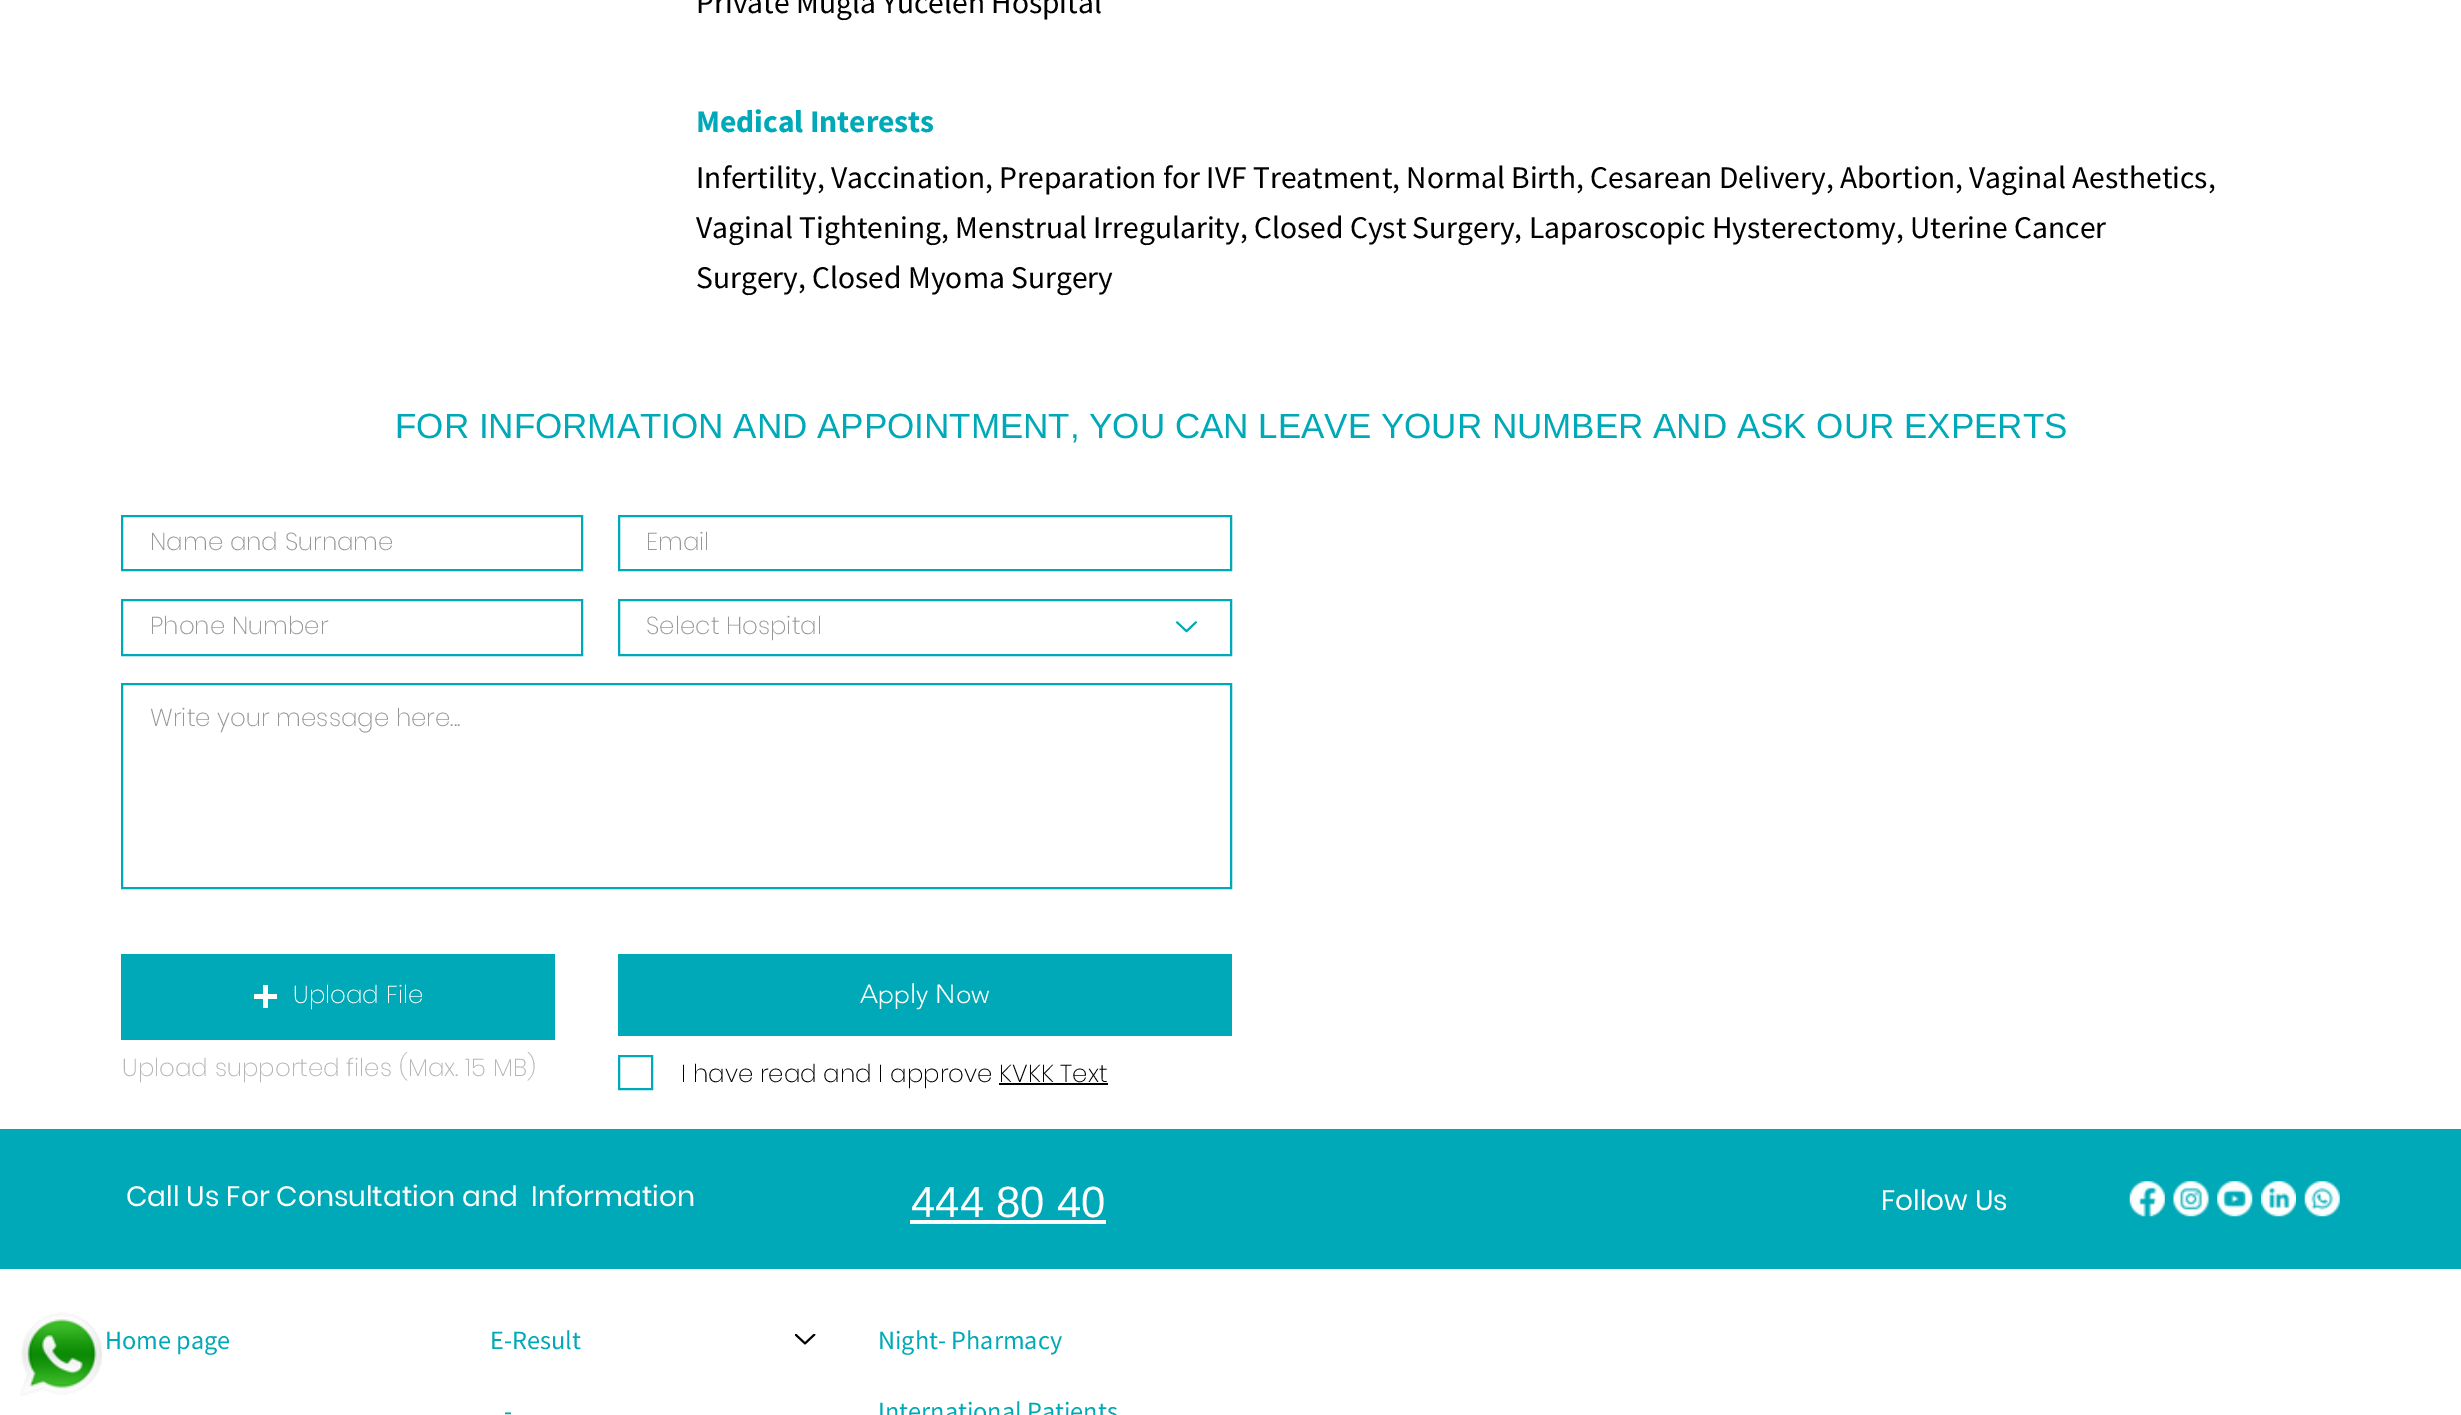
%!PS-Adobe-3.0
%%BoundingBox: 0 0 2461 1415
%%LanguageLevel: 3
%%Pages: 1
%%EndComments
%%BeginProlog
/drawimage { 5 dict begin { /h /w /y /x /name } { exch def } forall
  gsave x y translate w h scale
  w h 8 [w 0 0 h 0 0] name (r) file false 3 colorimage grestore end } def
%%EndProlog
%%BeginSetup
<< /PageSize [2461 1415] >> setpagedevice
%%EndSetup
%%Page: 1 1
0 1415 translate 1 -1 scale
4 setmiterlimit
1 setgray
0 0 2461 1415 rectfill
(images/1.raw) 20 1312 83 84 drawimage
0 0.663 0.718 setrgbcolor
2 setlinewidth
122 516 460 54 rectstroke
619 516 612 54 rectstroke
122 600 460 55 rectstroke
619 600 612 55 rectstroke
(images/2.raw) 1176 621 21 12 drawimage
122 684 1109 204 rectstroke
121 954 434 86 rectfill
1 setgray
263 985 5 23 rectfill
254 994 23 5 rectfill
0 0.663 0.718 setrgbcolor
618 954 614 82 rectfill
619 1056 33 33 rectstroke
0 setgray
999 1083 109 2 rectfill
0 0.663 0.718 setrgbcolor
0 1129 2461 140 rectfill
1 setgray
910 1220 196 4 rectfill
(images/3.raw) 2129 1181 36 36 drawimage
(images/4.raw) 2173 1181 36 36 drawimage
(images/5.raw) 2217 1181 36 36 drawimage
(images/6.raw) 2261 1181 35 36 drawimage
(images/7.raw) 2304 1181 36 36 drawimage
(images/8.raw) 795 1334 21 11 drawimage
/SourceSansPro-Regular [31.5 0 0 -31.5 0 0] selectfont
0 setgray
696 13 moveto (Private Mugla Yücelen Hospital) show
/SourceSansPro-Bold [31.5 0 0 -31.5 0 0] selectfont
0 0.663 0.718 setrgbcolor
696 132 moveto (Medical Interests) show
/SourceSansPro-Regular [31.5 0 0 -31.5 0 0] selectfont
0 setgray
696 188 moveto (Infertility, Vaccination, Preparation for IVF Treatment, Normal Birth, Cesarean Delivery, Abortion, Vaginal Aesthetics,) show
696 238 moveto (Vaginal Tightening, Menstrual Irregularity, Closed Cyst Surgery, Laparoscopic Hysterectomy, Uterine Cancer) show
696 288 moveto (Surgery, Closed Myoma Surgery) show
/LiberationSans-Regular [35 0 0 -35 0 0] selectfont
0 0.663 0.718 setrgbcolor
395 438 moveto (FOR INFORMATION AND APPOINTMENT, YOU CAN LEAVE YOUR NUMBER AND ASK OUR EXPERTS) show
/Poppins-ExtraLight [24.5 0 0 -24.5 0 0] selectfont
0.592 setgray
150 550 moveto (Name and Surname) show
646 550 moveto (Email) show
150 634 moveto (Phone Number) show
646 634 moveto (Select Hospital) show
150 726 moveto (Write your message here...) show
1 setgray
293 1003 moveto (Upload File) show
gsave
121 1052 415 33 rectclip
0.714 setgray
122 1076 moveto (Upload supported files \(Max. 15 MB\)) show
grestore
/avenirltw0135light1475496-Light [26.25 0 0 -26.25 0 0] selectfont
860 1003 moveto (Apply Now) show
/Poppins-ExtraLight [24.5 0 0 -24.5 0 0] selectfont
0 setgray
681 1082 moveto (I have read and I approve KVKK Text) show
/Poppins-Regular [28 0 0 -28 0 0] selectfont
1 setgray
126 1206 moveto (Call Us For Consultation and  Information) show
/LiberationSans-Regular [43.75 0 0 -43.75 0 0] selectfont
911 1217 moveto (444 80 40) show
/Poppins-Regular [28 0 0 -28 0 0] selectfont
1881 1210 moveto (Follow Us) show
/SourceSansPro-Regular [26.25 0 0 -26.25 0 0] selectfont
0 0.663 0.718 setrgbcolor
105 1349 moveto (Home page) show
490 1349 moveto (E-Result) show
504 1420 moveto (-) show
878 1349 moveto (Night- Pharmacy) show
878 1420 moveto (International Patients) show
showpage
%%EOF
